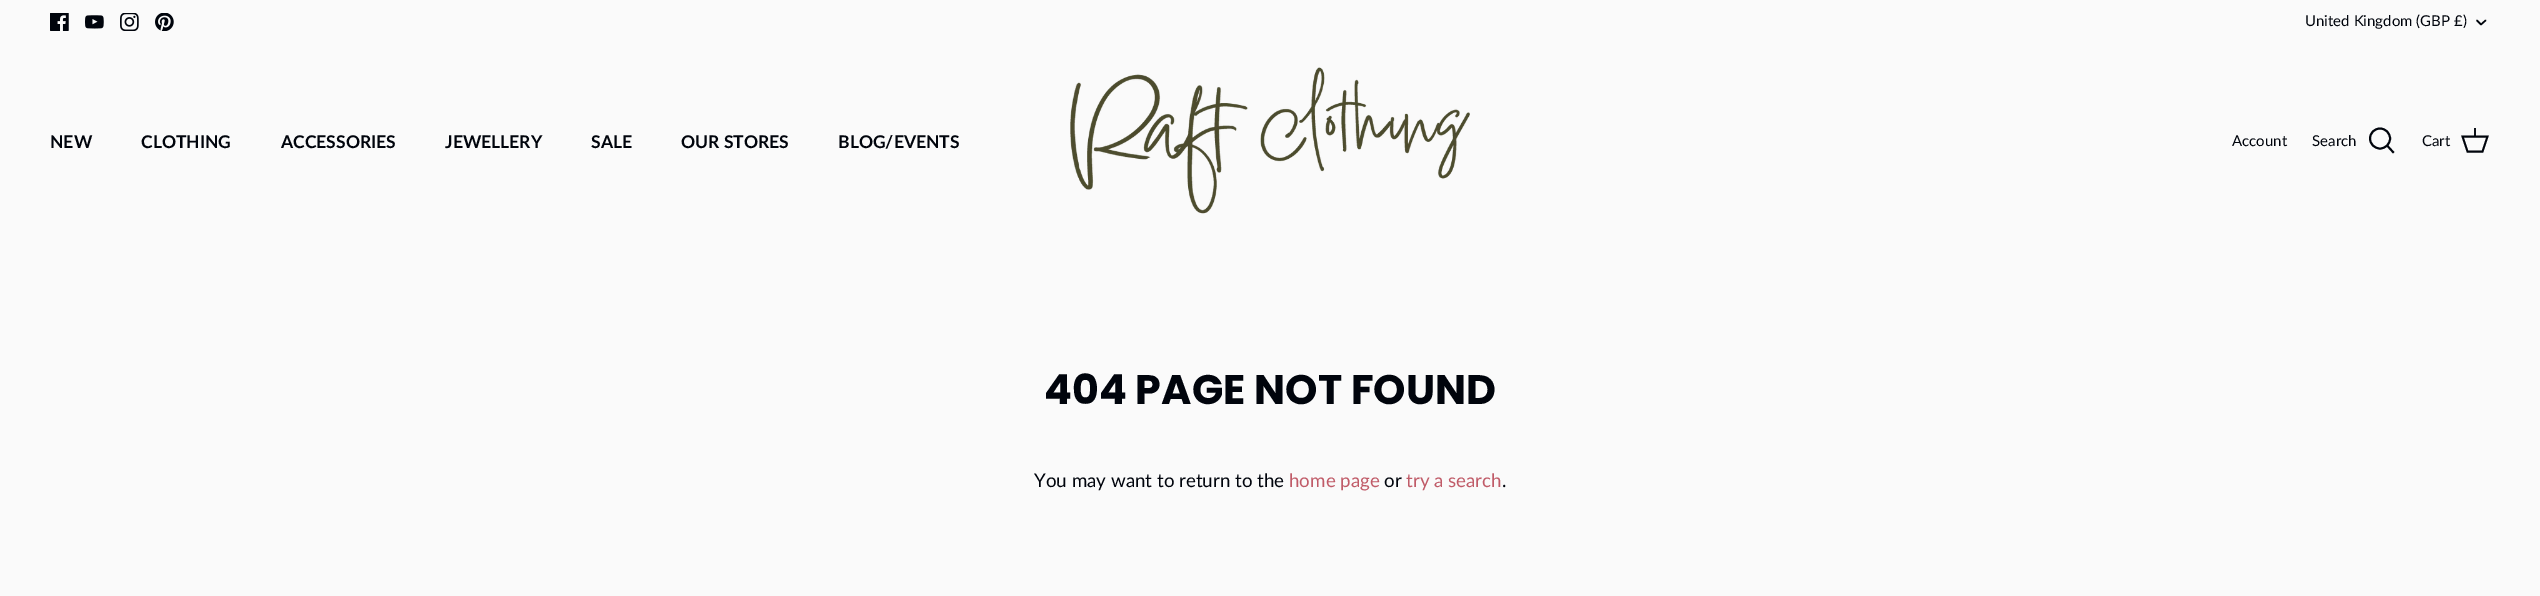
%!PS-Adobe-3.0
%%BoundingBox: 0 0 2540 596
%%LanguageLevel: 3
%%Pages: 1
%%EndComments
%%BeginProlog
/setalpha { dup .setfillconstantalpha .setstrokeconstantalpha } def
/drawimage { 5 dict begin { /h /w /y /x /name } { exch def } forall
  gsave x y translate w h scale
  w h 8 [w 0 0 h 0 0] name (r) file false 3 colorimage grestore end } def
%%EndProlog
%%BeginSetup
<< /PageSize [2540 596] /PageUsesTransparency true >> setpagedevice
%%EndSetup
%%Page: 1 1
0 .pushpdf14devicefilter
0 596 translate 1 -1 scale
4 setmiterlimit
0.98 setgray
0 0 2540 596 rectfill
(images/1.raw) 50 13 19 18 drawimage
(images/2.raw) 85 15 19 14 drawimage
(images/3.raw) 120 13 19 18 drawimage
(images/4.raw) 155 13 19 18 drawimage
0 0.016 0.047 setrgbcolor
1.5 setlinewidth
1 setlinecap
1 setlinejoin
newpath 2477 20.5 moveto 2481 24.5 lineto 2485.5 20.5 lineto stroke
(images/5.raw) 1070 67 400 147 drawimage
1.9 setlinewidth
0 setlinecap
0 setlinejoin
newpath 2380 138.5 10 0 360 arc closepath stroke
2 setlinecap
newpath 2387.5 146 moveto 2393 152 lineto stroke
0 setlinecap
newpath 2462.5 136.5 moveto 2487.5 136.5 lineto 2482.5 151.5 lineto 2467.5 151.5 lineto closepath stroke
0.95 setalpha
2474 128 2 9 rectfill
/Lato-Regular [15 0 0 -15 0 0] selectfont
1 setalpha
2305 26 moveto (United Kingdom \(GBP £\)) show
/Lato-Bold [17.5 0 0 -17.5 0 0] selectfont
50 148 moveto (NEW) show
141 148 moveto (CLOTHING) show
281 148 moveto (ACCESSORIES) show
445 148 moveto (JEWELLERY) show
591 148 moveto (SALE) show
681 148 moveto (OUR STORES) show
838 148 moveto (BLOG/EVENTS) show
/Lato-Regular [15 0 0 -15 0 0] selectfont
2232 146 moveto (Account) show
2312 146 moveto (Search) show
2422 146 moveto (Cart) show
/Poppins-Bold [41.25 0 0 -41.25 0 0] selectfont
1044 404 moveto (404 PAGE NOT FOUND) show
/Lato-Regular [18.75 0 0 -18.75 0 0] selectfont
1034 487 moveto (You may want to return to the) show
0.753 0.357 0.408 setrgbcolor
1289 487 moveto (home page) show
0 0.016 0.047 setrgbcolor
1384 487 moveto (or) show
0.753 0.357 0.408 setrgbcolor
1406 487 moveto (try a search) show
0 0.016 0.047 setrgbcolor
1502 487 moveto (.) show
.poppdf14devicefilter showpage
%%EOF
